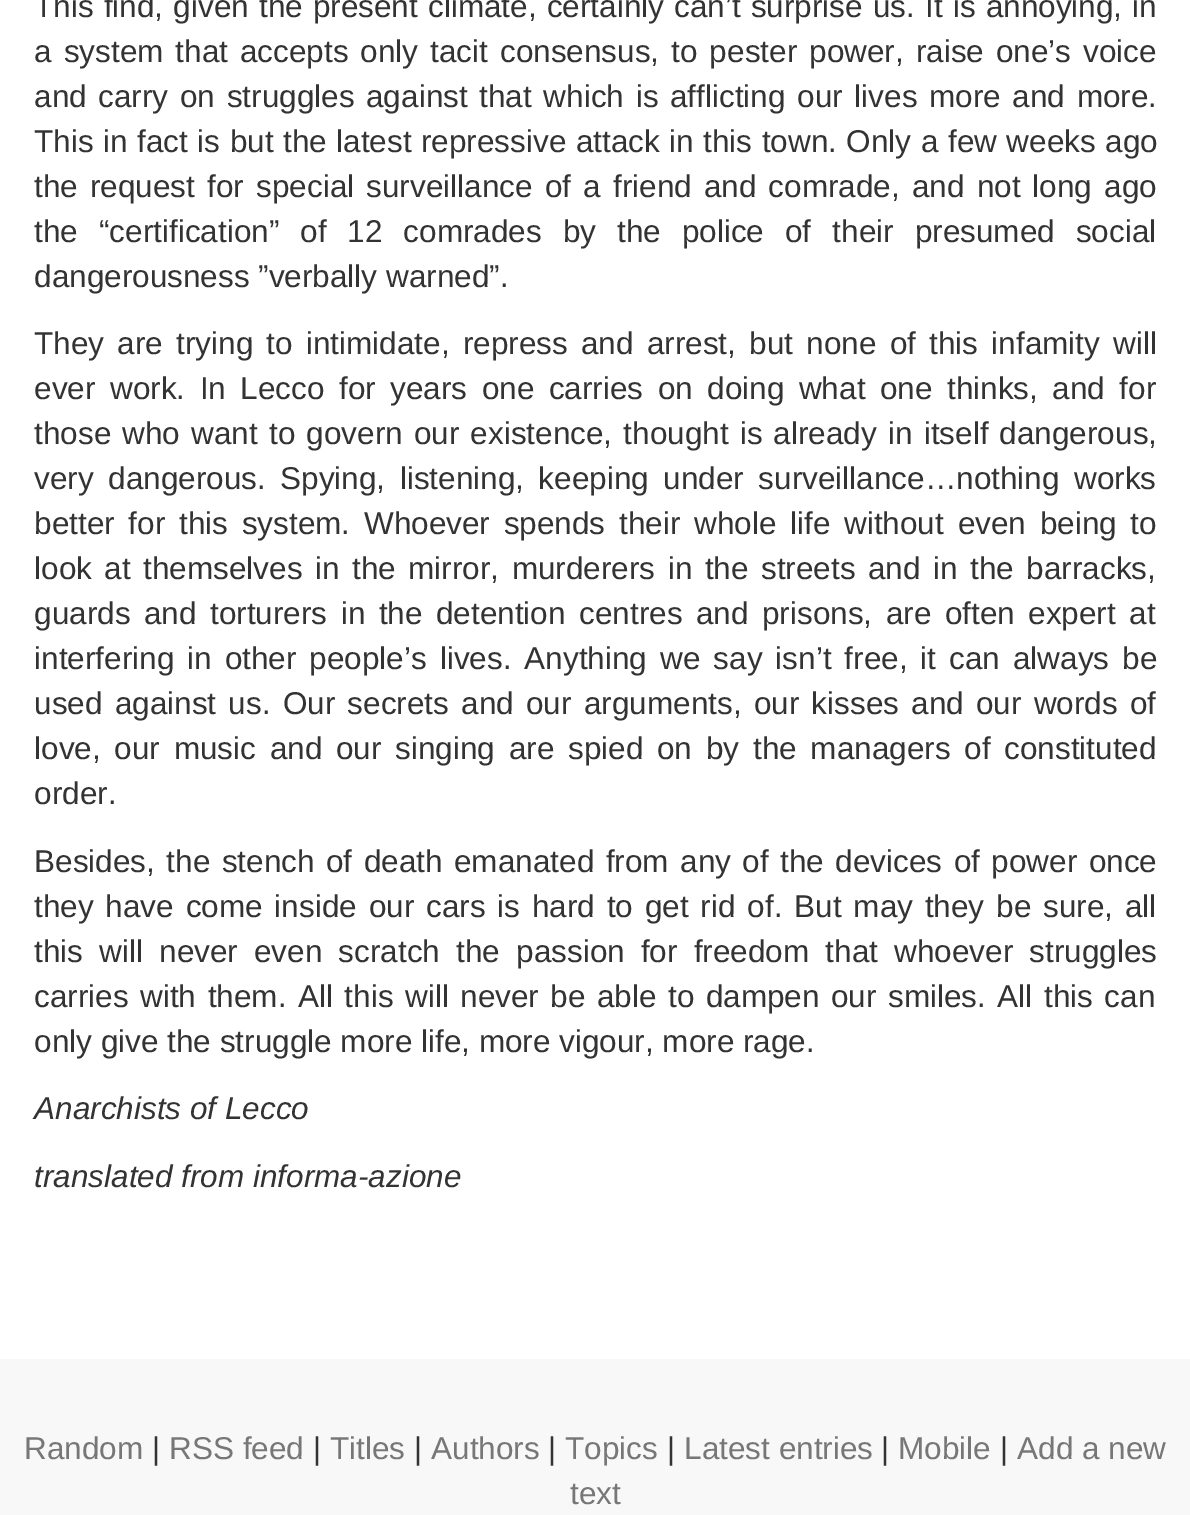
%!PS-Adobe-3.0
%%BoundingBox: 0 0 1190 1515
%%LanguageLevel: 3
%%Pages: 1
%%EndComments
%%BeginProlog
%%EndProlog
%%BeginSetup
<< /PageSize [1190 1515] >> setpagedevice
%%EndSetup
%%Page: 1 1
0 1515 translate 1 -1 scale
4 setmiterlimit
1 setgray
0 0 1190 1515 rectfill
0.973 setgray
0 1359 1190 156 rectfill
/LiberationSans-Regular [31.5 0 0 -31.5 0 0] selectfont
0.2 setgray
34 17 moveto 1.4 0 32 (This find, given the present climate, certainly can’t surprise us. It is annoying, in) widthshow
34 62 moveto 3.25 0 32 (a system that accepts only tacit consensus, to pester power, raise one’s voice) widthshow
34 107 moveto 2.9 0 32 (and carry on struggles against that which is afflicting our lives more and more.) widthshow
34 152 moveto 0.75 0 32 (This in fact is but the latest repressive attack in this town. Only a few weeks ago) widthshow
34 197 moveto 3.4 0 32 (the request for special surveillance of a friend and comrade, and not long ago) widthshow
34 242 moveto 12.25 0 32 (the “certification” of 12 comrades by the police of their presumed social) widthshow
34 287 moveto (dangerousness ”verbally warned”.) show
34 354 moveto 4.5 0 32 (They are trying to intimidate, repress and arrest, but none of this infamity will) widthshow
34 399 moveto 5.75 0 32 (ever work. In Lecco for years one carries on doing what one thinks, and for) widthshow
34 444 moveto 2.4 0 32 (those who want to govern our existence, thought is already in itself dangerous,) widthshow
34 489 moveto 5.75 0 32 (very dangerous. Spying, listening, keeping under surveillance…nothing works) widthshow
34 534 moveto 5 0 32 (better for this system. Whoever spends their whole life without even being to) widthshow
34 579 moveto 3.75 0 32 (look at themselves in the mirror, murderers in the streets and in the barracks,) widthshow
34 624 moveto 4.75 0 32 (guards and torturers in the detention centres and prisons, are often expert at) widthshow
34 669 moveto 4.25 0 32 (interfering in other people’s lives. Anything we say isn’t free, it can always be) widthshow
34 714 moveto 3.5 0 32 (used against us. Our secrets and our arguments, our kisses and our words of) widthshow
34 759 moveto 5 0 32 (love, our music and our singing are spied on by the managers of constituted) widthshow
34 804 moveto (order.) show
34 872 moveto 2.75 0 32 (Besides, the stench of death emanated from any of the devices of power once) widthshow
34 917 moveto 3.1 0 32 (they have come inside our cars is hard to get rid of. But may they be sure, all) widthshow
34 962 moveto 7.4 0 32 (this will never even scratch the passion for freedom that whoever struggles) widthshow
34 1007 moveto 2.75 0 32 (carries with them. All this will never be able to dampen our smiles. All this can) widthshow
34 1052 moveto (only give the struggle more life, more vigour, more rage.) show
/LiberationSans-Italic [31.5 0 0 -31.5 0 0] selectfont
34 1119 moveto (Anarchists of Lecco) show
34 1187 moveto (translated from informa-azione) show
/LiberationSans-Regular [31.5 0 0 -31.5 0 0] selectfont
0.467 setgray
24 1459 moveto (Random) show
0.2 setgray
152 1459 moveto (|) show
0.467 setgray
169 1459 moveto (RSS feed) show
0.2 setgray
313 1459 moveto (|) show
0.467 setgray
330 1459 moveto (Titles) show
0.2 setgray
414 1459 moveto (|) show
0.467 setgray
431 1459 moveto (Authors) show
0.2 setgray
548 1459 moveto (|) show
0.467 setgray
565 1459 moveto (Topics) show
0.2 setgray
667 1459 moveto (|) show
0.467 setgray
684 1459 moveto (Latest entries) show
0.2 setgray
881 1459 moveto (|) show
0.467 setgray
898 1459 moveto (Mobile) show
0.2 setgray
1000 1459 moveto (|) show
0.467 setgray
1017 1459 moveto (Add a new) show
570 1504 moveto (text) show
showpage
%%EOF
